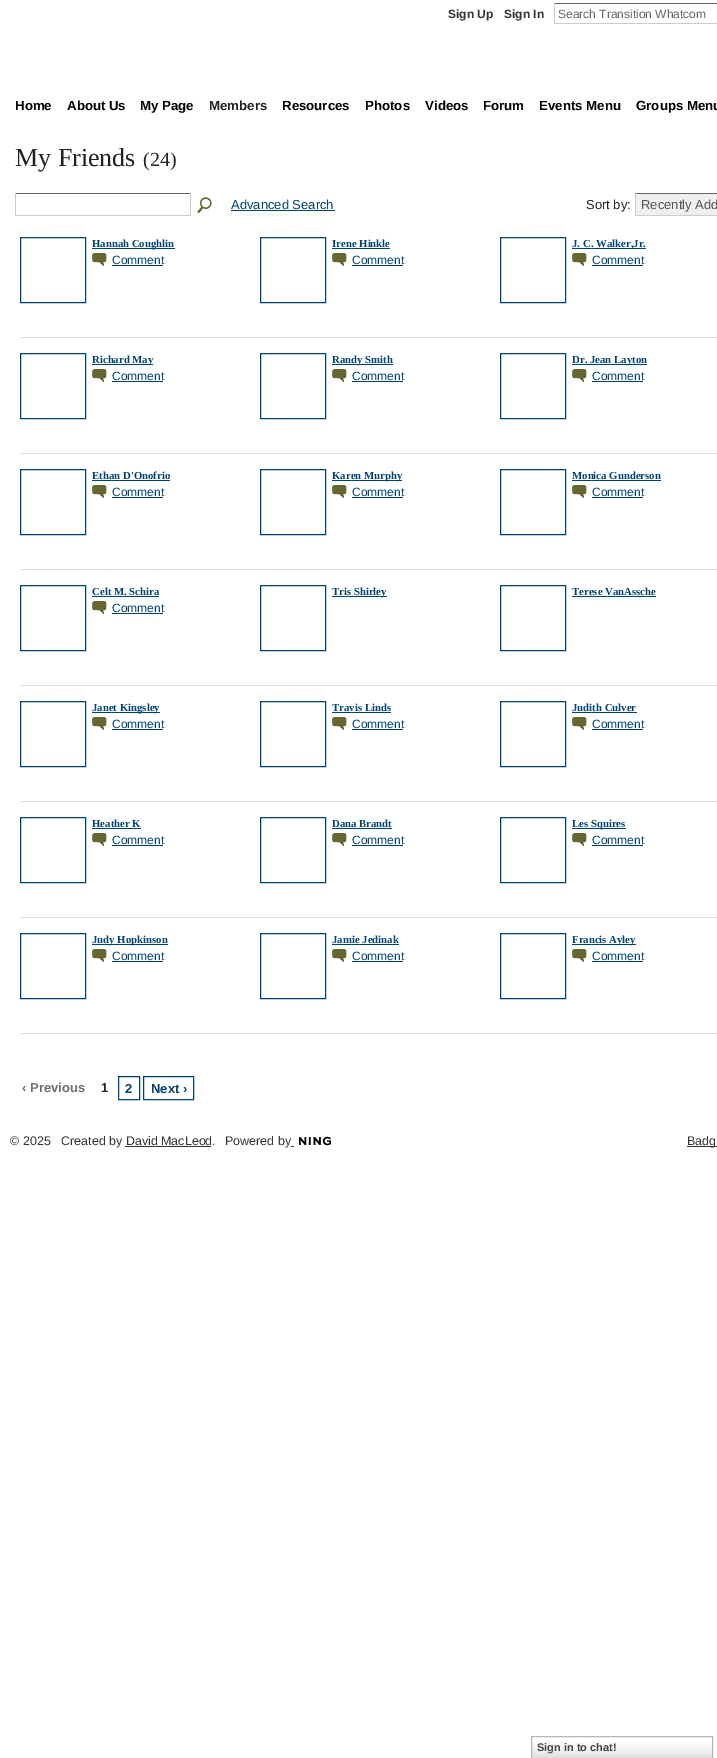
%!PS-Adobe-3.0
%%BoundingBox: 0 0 717 1758
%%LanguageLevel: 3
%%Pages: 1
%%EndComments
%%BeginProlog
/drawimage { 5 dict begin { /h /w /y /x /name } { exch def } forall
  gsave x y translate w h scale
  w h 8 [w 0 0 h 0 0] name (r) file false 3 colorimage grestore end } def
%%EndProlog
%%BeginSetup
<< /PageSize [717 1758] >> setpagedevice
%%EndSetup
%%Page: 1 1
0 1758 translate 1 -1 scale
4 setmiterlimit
1 setgray
0 0 717 1758 rectfill
0.4 setgray
554 3 163 1 rectfill
0.8 setgray
554 23 163 1 rectfill
554 3 1 21 rectfill
0.4 setgray
15 193 176 1 rectfill
0.8 setgray
190 193 1 23 rectfill
15 215 176 1 rectfill
15 193 1 23 rectfill
(images/1.raw) 197 197 15 16 drawimage
0 0.259 0.463 setrgbcolor
231 210 104 1 rectfill
0.937 setgray
636 194 81 21 rectfill
0.4 setgray
635 193 82 1 rectfill
0.8 setgray
635 215 82 1 rectfill
635 193 1 23 rectfill
0.867 setgray
20 337 697 1 rectfill
0 0.259 0.463 setrgbcolor
20.5 237.5 65 65 rectstroke
92 248 83 1 rectfill
(images/2.raw) 92 253 15 13 drawimage
112 265 51 1 rectfill
260.5 237.5 65 65 rectstroke
332 248 58 1 rectfill
(images/2.raw) 332 253 15 13 drawimage
352 265 51 1 rectfill
500.5 237.5 65 65 rectstroke
572 248 74 1 rectfill
(images/2.raw) 572 253 15 13 drawimage
592 265 51 1 rectfill
0.867 setgray
20 453 697 1 rectfill
0 0.259 0.463 setrgbcolor
20.5 353.5 65 65 rectstroke
92 364 61 1 rectfill
(images/2.raw) 92 369 15 13 drawimage
112 381 51 1 rectfill
260.5 353.5 65 65 rectstroke
332 364 61 1 rectfill
(images/2.raw) 332 369 15 13 drawimage
352 381 51 1 rectfill
500.5 353.5 65 65 rectstroke
572 364 75 1 rectfill
(images/2.raw) 572 369 15 13 drawimage
592 381 51 1 rectfill
0.867 setgray
20 569 697 1 rectfill
0 0.259 0.463 setrgbcolor
20.5 469.5 65 65 rectstroke
92 480 78 1 rectfill
(images/2.raw) 92 485 15 13 drawimage
112 497 51 1 rectfill
260.5 469.5 65 65 rectstroke
332 480 70 1 rectfill
(images/2.raw) 332 485 15 13 drawimage
352 497 51 1 rectfill
500.5 469.5 65 65 rectstroke
572 480 89 1 rectfill
(images/2.raw) 572 485 15 13 drawimage
592 497 51 1 rectfill
0.867 setgray
20 685 697 1 rectfill
0 0.259 0.463 setrgbcolor
20.5 585.5 65 65 rectstroke
92 596 67 1 rectfill
(images/2.raw) 92 601 15 13 drawimage
112 613 51 1 rectfill
260.5 585.5 65 65 rectstroke
332 596 55 1 rectfill
500.5 585.5 65 65 rectstroke
572 596 84 1 rectfill
0.867 setgray
20 801 697 1 rectfill
0 0.259 0.463 setrgbcolor
20.5 701.5 65 65 rectstroke
92 712 68 1 rectfill
(images/2.raw) 92 717 15 13 drawimage
112 729 51 1 rectfill
260.5 701.5 65 65 rectstroke
332 712 59 1 rectfill
(images/2.raw) 332 717 15 13 drawimage
352 729 51 1 rectfill
500.5 701.5 65 65 rectstroke
572 712 65 1 rectfill
(images/2.raw) 572 717 15 13 drawimage
592 729 51 1 rectfill
0.867 setgray
20 917 697 1 rectfill
0 0.259 0.463 setrgbcolor
20.5 817.5 65 65 rectstroke
92 828 49 1 rectfill
(images/2.raw) 92 833 15 13 drawimage
112 845 51 1 rectfill
260.5 817.5 65 65 rectstroke
332 828 60 1 rectfill
(images/2.raw) 332 833 15 13 drawimage
352 845 51 1 rectfill
500.5 817.5 65 65 rectstroke
572 828 54 1 rectfill
(images/2.raw) 572 833 15 13 drawimage
592 845 51 1 rectfill
0.867 setgray
20 1033 697 1 rectfill
0 0.259 0.463 setrgbcolor
20.5 933.5 65 65 rectstroke
92 944 76 1 rectfill
(images/2.raw) 92 949 15 13 drawimage
112 961 51 1 rectfill
260.5 933.5 65 65 rectstroke
332 944 67 1 rectfill
(images/2.raw) 332 949 15 13 drawimage
352 961 51 1 rectfill
500.5 933.5 65 65 rectstroke
572 944 64 1 rectfill
(images/2.raw) 572 949 15 13 drawimage
592 961 51 1 rectfill
118.5 1076.5 21 23 rectstroke
143.5 1076.5 50 23 rectstroke
(images/3.raw) 299 1136 32 10 drawimage
0.2 setgray
125 1146 86 1 rectfill
291 1146 3 1 rectfill
687 1146 30 1 rectfill
(images/4.raw) 532 1742 180 16 drawimage
0.718 setgray
531.5 1736.5 181 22 rectstroke
/LiberationSans-Bold [12 0 0 -12 0 0] selectfont
0.2 setgray
448 18 moveto (Sign Up) show
504 18 moveto (Sign In) show
/LiberationSans-Regular [12 0 0 -12 0 0] selectfont
0.4 setgray
558 18 moveto (Search Transition Whatcom) show
/LiberationSans-Bold [13.25 0 0 -13.25 0 0] selectfont
0 setgray
15 110 moveto (Home) show
67 110 moveto (About Us) show
140 110 moveto (My Page) show
0.133 setgray
209 110 moveto (Members) show
0 setgray
282 110 moveto (Resources) show
365 110 moveto (Photos) show
425 110 moveto (Videos) show
483 110 moveto (Forum) show
539 110 moveto (Events Menu) show
636 110 moveto (Groups Menu) show
/LiberationSerif-Regular [26 0 0 -26 0 0] selectfont
0.133 setgray
15 166 moveto (My Friends) show
/LiberationSerif-Regular [20 0 0 -20 0 0] selectfont
143 166 moveto (\(24\)) show
/LiberationSans-Regular [13 0 0 -13 0 0] selectfont
0 0.259 0.463 setrgbcolor
231 209 moveto (Advanced Search) show
0.133 setgray
586 209 moveto (Sort by:) show
0.333 setgray
641 209 moveto (Recently Add) show
/LiberationSerif-Bold [10.75 0 0 -10.75 0 0] selectfont
0 0.259 0.463 setrgbcolor
92 247 moveto (Hannah Coughlin) show
/LiberationSans-Regular [12 0 0 -12 0 0] selectfont
112 264 moveto (Comment) show
/LiberationSerif-Bold [10.75 0 0 -10.75 0 0] selectfont
332 247 moveto (Irene Hinkle) show
/LiberationSans-Regular [12 0 0 -12 0 0] selectfont
352 264 moveto (Comment) show
/LiberationSerif-Bold [10.75 0 0 -10.75 0 0] selectfont
572 247 moveto (J. C. Walker,Jr.) show
/LiberationSans-Regular [12 0 0 -12 0 0] selectfont
592 264 moveto (Comment) show
/LiberationSerif-Bold [10.75 0 0 -10.75 0 0] selectfont
92 363 moveto (Richard May) show
/LiberationSans-Regular [12 0 0 -12 0 0] selectfont
112 380 moveto (Comment) show
/LiberationSerif-Bold [10.75 0 0 -10.75 0 0] selectfont
332 363 moveto (Randy Smith) show
/LiberationSans-Regular [12 0 0 -12 0 0] selectfont
352 380 moveto (Comment) show
/LiberationSerif-Bold [10.75 0 0 -10.75 0 0] selectfont
572 363 moveto (Dr. Jean Layton) show
/LiberationSans-Regular [12 0 0 -12 0 0] selectfont
592 380 moveto (Comment) show
/LiberationSerif-Bold [10.75 0 0 -10.75 0 0] selectfont
92 479 moveto (Ethan D'Onofrio) show
/LiberationSans-Regular [12 0 0 -12 0 0] selectfont
112 496 moveto (Comment) show
/LiberationSerif-Bold [10.75 0 0 -10.75 0 0] selectfont
332 479 moveto (Karen Murphy) show
/LiberationSans-Regular [12 0 0 -12 0 0] selectfont
352 496 moveto (Comment) show
/LiberationSerif-Bold [10.75 0 0 -10.75 0 0] selectfont
572 479 moveto (Monica Gunderson) show
/LiberationSans-Regular [12 0 0 -12 0 0] selectfont
592 496 moveto (Comment) show
/LiberationSerif-Bold [10.75 0 0 -10.75 0 0] selectfont
92 595 moveto (Celt M. Schira) show
/LiberationSans-Regular [12 0 0 -12 0 0] selectfont
112 612 moveto (Comment) show
/LiberationSerif-Bold [10.75 0 0 -10.75 0 0] selectfont
332 595 moveto (Tris Shirley) show
572 595 moveto (Terese VanAssche) show
92 711 moveto (Janet Kingsley) show
/LiberationSans-Regular [12 0 0 -12 0 0] selectfont
112 728 moveto (Comment) show
/LiberationSerif-Bold [10.75 0 0 -10.75 0 0] selectfont
332 711 moveto (Travis Linds) show
/LiberationSans-Regular [12 0 0 -12 0 0] selectfont
352 728 moveto (Comment) show
/LiberationSerif-Bold [10.75 0 0 -10.75 0 0] selectfont
572 711 moveto (Judith Culver) show
/LiberationSans-Regular [12 0 0 -12 0 0] selectfont
592 728 moveto (Comment) show
/LiberationSerif-Bold [10.75 0 0 -10.75 0 0] selectfont
92 827 moveto (Heather K) show
/LiberationSans-Regular [12 0 0 -12 0 0] selectfont
112 844 moveto (Comment) show
/LiberationSerif-Bold [10.75 0 0 -10.75 0 0] selectfont
332 827 moveto (Dana Brandt) show
/LiberationSans-Regular [12 0 0 -12 0 0] selectfont
352 844 moveto (Comment) show
/LiberationSerif-Bold [10.75 0 0 -10.75 0 0] selectfont
572 827 moveto (Les Squires) show
/LiberationSans-Regular [12 0 0 -12 0 0] selectfont
592 844 moveto (Comment) show
/LiberationSerif-Bold [10.75 0 0 -10.75 0 0] selectfont
92 943 moveto (Judy Hopkinson) show
/LiberationSans-Regular [12 0 0 -12 0 0] selectfont
112 960 moveto (Comment) show
/LiberationSerif-Bold [10.75 0 0 -10.75 0 0] selectfont
332 943 moveto (Jamie Jedinak) show
/LiberationSans-Regular [12 0 0 -12 0 0] selectfont
352 960 moveto (Comment) show
/LiberationSerif-Bold [10.75 0 0 -10.75 0 0] selectfont
572 943 moveto (Francis Ayley) show
/LiberationSans-Regular [12 0 0 -12 0 0] selectfont
592 960 moveto (Comment) show
/LiberationSans-Bold [13 0 0 -13 0 0] selectfont
0.435 setgray
22 1092 moveto (‹ Previous) show
0.133 setgray
101 1092 moveto (1) show
0 0.259 0.463 setrgbcolor
125 1093 moveto (2) show
151 1093 moveto (Next ›) show
/LiberationSans-Regular [12.5 0 0 -12.5 0 0] selectfont
0.2 setgray
10 1145 moveto (© 2025) show
61 1145 moveto (Created by David MacLeod.) show
225 1145 moveto (Powered by) show
687 1145 moveto (Badg) show
/LiberationSans-Bold [11 0 0 -11 0 0] selectfont
0.271 setgray
537 1751 moveto (Sign in to chat!) show
showpage
%%EOF
